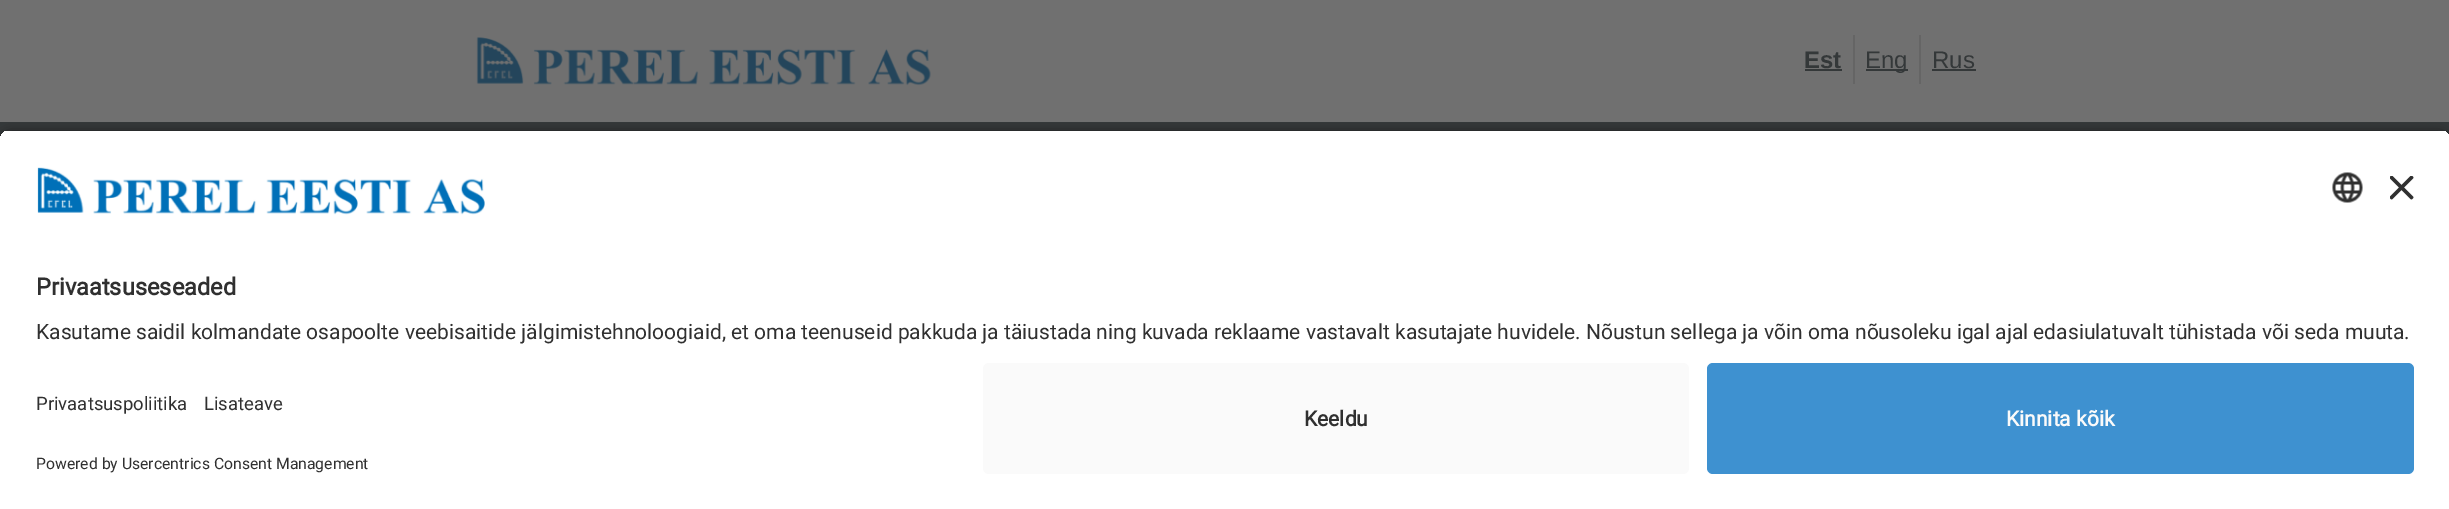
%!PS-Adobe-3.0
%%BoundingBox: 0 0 2449 509
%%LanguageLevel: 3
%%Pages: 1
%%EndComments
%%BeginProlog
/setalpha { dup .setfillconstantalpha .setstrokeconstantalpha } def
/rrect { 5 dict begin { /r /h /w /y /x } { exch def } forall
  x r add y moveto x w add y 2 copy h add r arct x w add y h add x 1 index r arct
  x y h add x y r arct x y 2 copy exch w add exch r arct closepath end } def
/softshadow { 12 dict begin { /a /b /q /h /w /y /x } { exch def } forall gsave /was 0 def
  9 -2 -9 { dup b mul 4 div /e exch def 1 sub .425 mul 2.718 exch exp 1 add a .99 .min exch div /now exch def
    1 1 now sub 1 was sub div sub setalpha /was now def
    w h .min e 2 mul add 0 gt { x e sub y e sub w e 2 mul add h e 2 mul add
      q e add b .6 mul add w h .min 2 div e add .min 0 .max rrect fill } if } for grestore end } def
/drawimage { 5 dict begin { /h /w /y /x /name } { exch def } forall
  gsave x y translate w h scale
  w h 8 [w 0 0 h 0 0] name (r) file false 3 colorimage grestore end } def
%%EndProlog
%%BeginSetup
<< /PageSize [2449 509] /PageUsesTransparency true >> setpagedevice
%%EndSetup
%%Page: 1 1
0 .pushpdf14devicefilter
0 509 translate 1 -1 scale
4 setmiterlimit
0.439 setgray
0 0 2449 509 rectfill
(images/1.raw) 476 37 455 49 drawimage
0.204 0.22 0.224 setrgbcolor
1805 69 37 2 rectfill
0.396 setgray
1853 35 2 49 rectfill
0.204 0.22 0.224 setrgbcolor
1866 69 42 2 rectfill
0.396 setgray
1919 35 2 49 rectfill
0.204 0.22 0.224 setrgbcolor
1932 69 44 2 rectfill
0 122 2449 19 rectfill
0 setgray
0 134 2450 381 12 5 0.8 softshadow
gsave
newpath 12 129 moveto 2438 129 lineto 2444.5 129 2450 134.5 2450 141 curveto 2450 351 lineto 0 351 lineto 0 141 lineto 0 134.5 5.5 129 12 129 curveto closepath clip newpath
1 setgray
0 131 2449 220 rectfill
grestore
(images/2.raw) 37 167 448 48 drawimage
(images/3.raw) 2332 172 31 31 drawimage
(images/4.raw) 2390 176 24 24 drawimage
1 setgray
0 351 2449 158 rectfill
0.98 setgray
983 363 706 111 6 rrect fill
0.243 0.569 0.816 setrgbcolor
1707 363 707 111 6 rrect fill
/LiberationSans-Bold [24 0 0 -24 0 0] selectfont
0.204 0.22 0.224 setrgbcolor
1804 68 moveto (Est) show
/LiberationSans-Regular [24 0 0 -24 0 0] selectfont
1865 68 moveto (Eng) show
1932 68 moveto (Rus) show
/Roboto-Bold [23.6 0 0 -23.6 0 0] selectfont
0.188 setgray
36 295 moveto (Privaatsuseseaded) show
/Roboto-Regular [21 0 0 -21 0 0] selectfont
36 339 moveto (Kasutame saidil kolmandate osapoolte veebisaitide jälgimistehnoloogiaid, et oma teenuseid pakkuda ja täiustada ning kuvada reklaame vastavalt kasutajate huvidele. Nõustun sellega ja võin oma nõusoleku igal ajal edasiulatuvalt tühistada või seda muuta.) show
/Roboto-Regular [18.5 0 0 -18.5 0 0] selectfont
36 410 moveto (Privaatsuspoliitika) show
204 410 moveto (Lisateave) show
/Roboto-Regular [15.75 0 0 -15.75 0 0] selectfont
36 469 moveto (Powered by Usercentrics Consent Management) show
/Roboto-Bold [21 0 0 -21 0 0] selectfont
1304 426 moveto (Keeldu) show
0.98 setgray
2006 426 moveto (Kinnita kõik) show
.poppdf14devicefilter showpage
%%EOF
